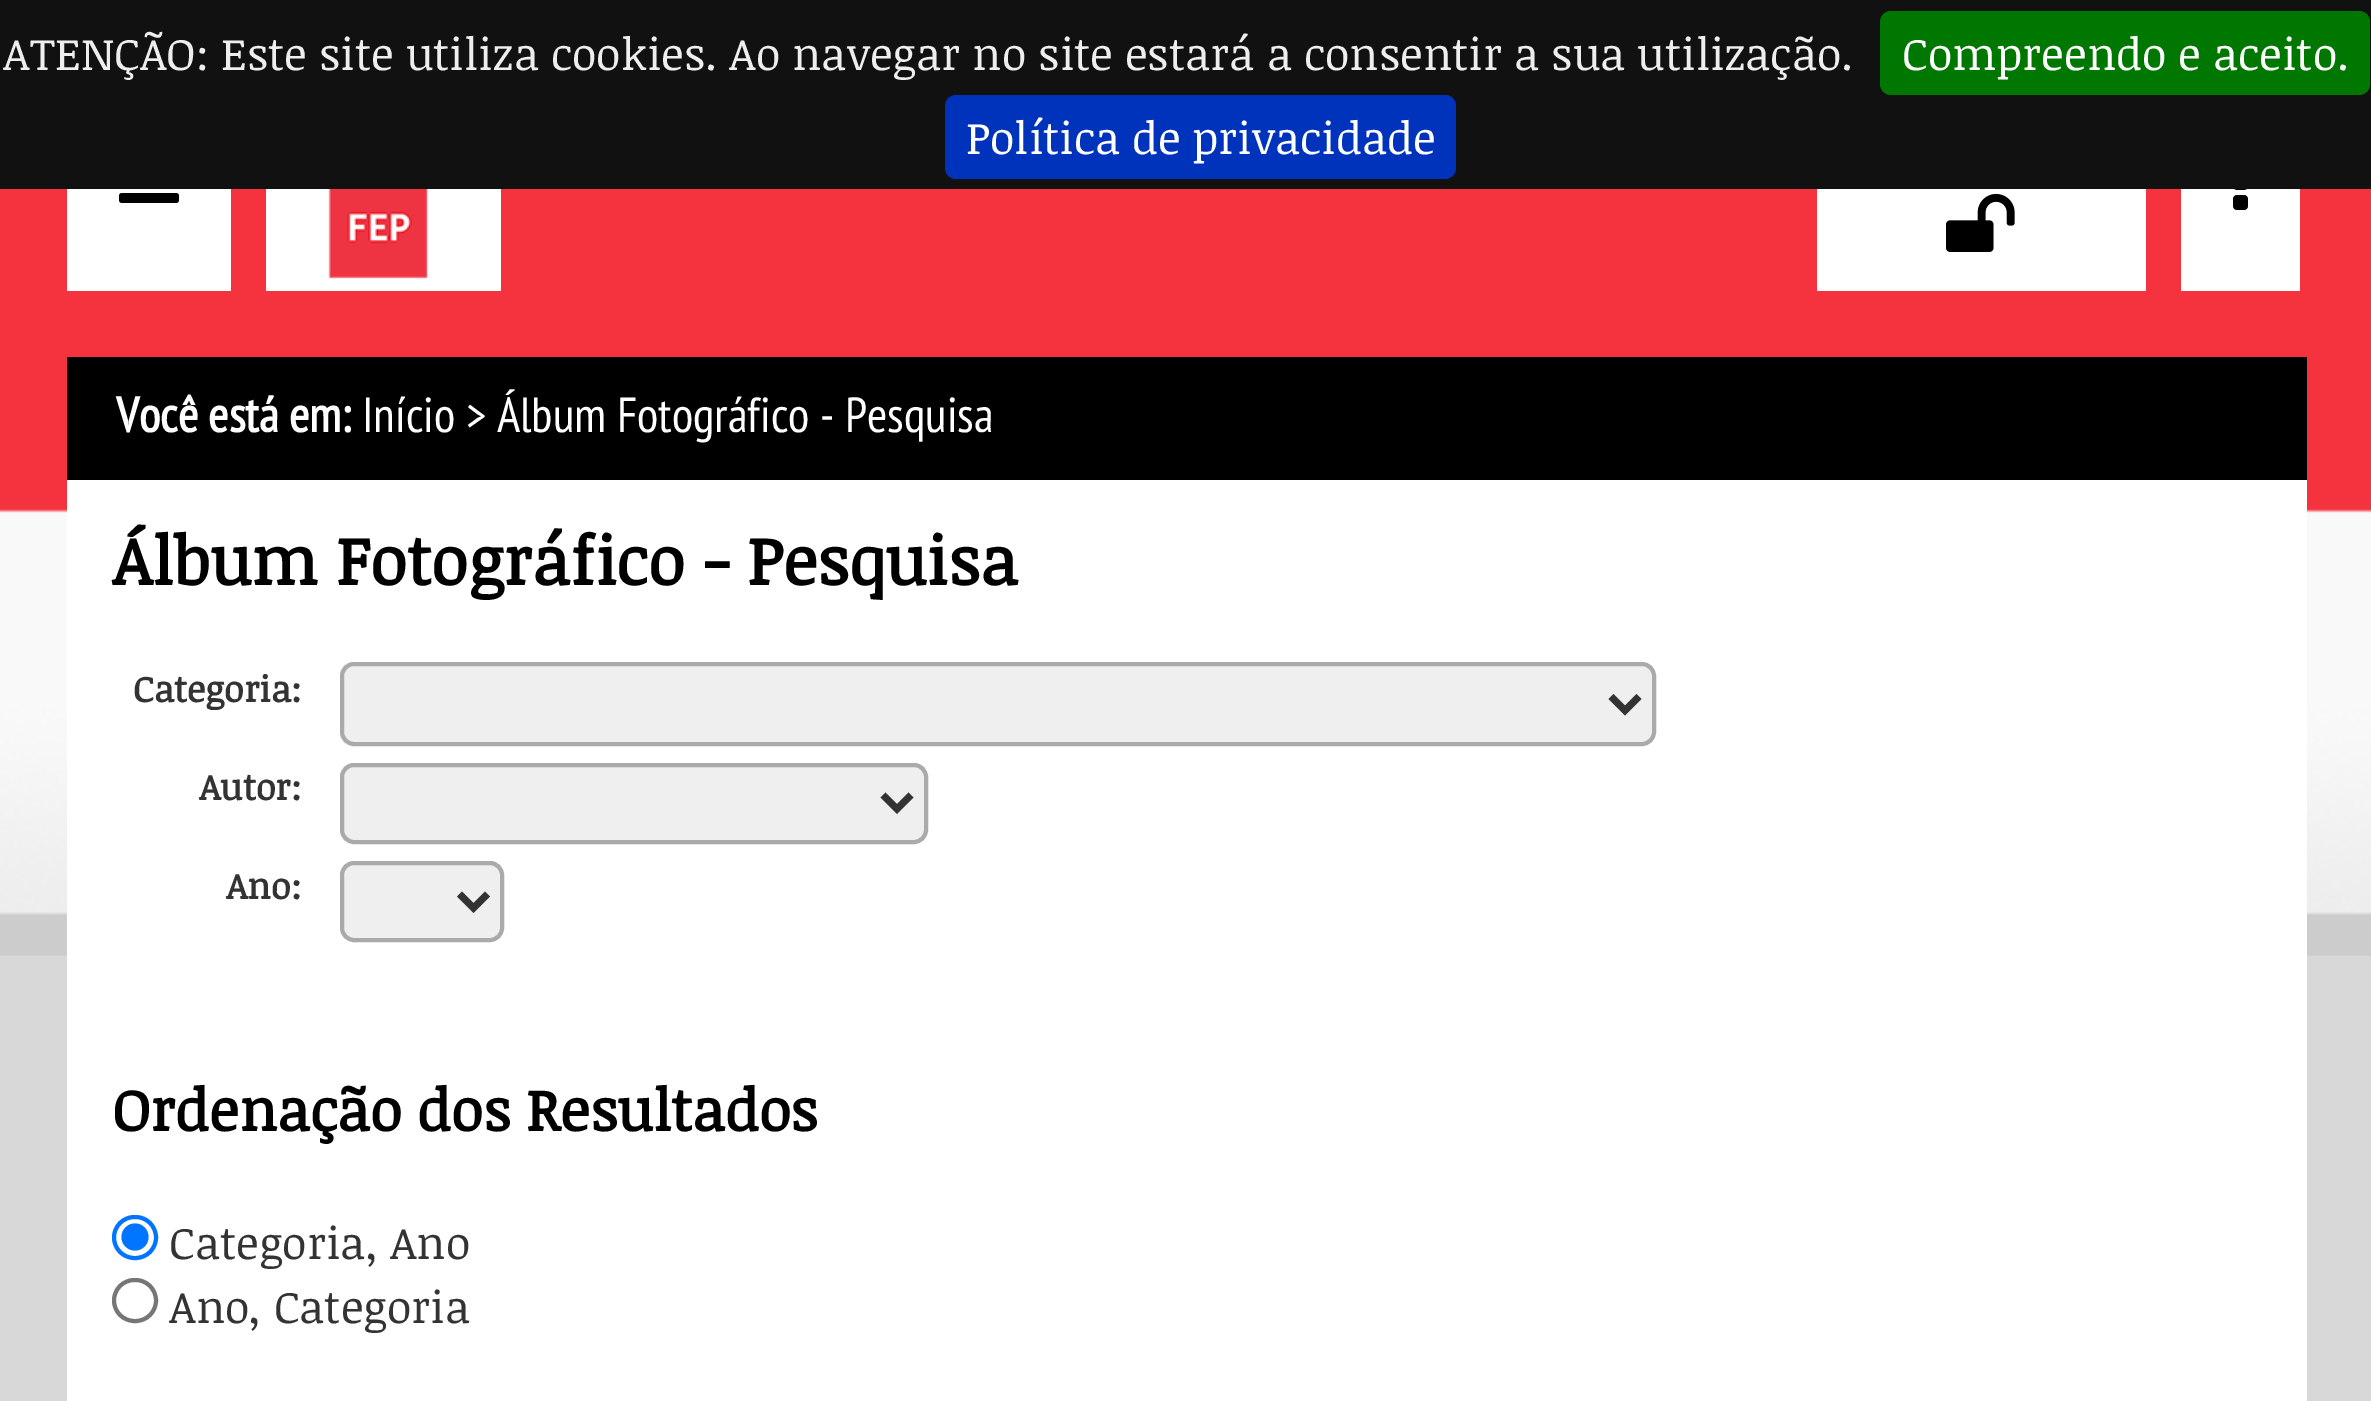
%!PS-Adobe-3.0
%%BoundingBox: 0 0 2371 1401
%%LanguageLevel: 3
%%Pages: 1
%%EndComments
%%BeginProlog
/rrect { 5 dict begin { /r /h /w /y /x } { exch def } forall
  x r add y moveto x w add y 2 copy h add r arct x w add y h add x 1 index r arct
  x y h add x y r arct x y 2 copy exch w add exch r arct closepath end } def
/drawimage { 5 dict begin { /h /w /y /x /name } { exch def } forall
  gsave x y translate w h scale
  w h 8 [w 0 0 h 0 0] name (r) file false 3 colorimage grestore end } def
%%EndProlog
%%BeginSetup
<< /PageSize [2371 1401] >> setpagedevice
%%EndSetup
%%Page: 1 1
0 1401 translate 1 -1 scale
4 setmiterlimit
0.847 setgray
0 0 2371 1401 rectfill
(images/1.raw) 0 189 2371 767 drawimage
0.067 setgray
0 0 2371 189 rectfill
0 0.467 0 setrgbcolor
1880 11 490 84 11 rrect fill
0 0.2 0.733 setrgbcolor
945 95 511 84 11 rrect fill
1 setgray
67 189 164 102 rectfill
(images/2.raw) 119 193 60 10 drawimage
266 189 235 102 rectfill
(images/3.raw) 322 189 112 90 drawimage
1817 189 329 102 rectfill
(images/4.raw) 1946 193 69 59 drawimage
2181 189 119 102 rectfill
(images/5.raw) 2233 189 15 21 drawimage
0 setgray
67 357 2240 123 rectfill
1 setgray
67 480 2240 921 rectfill
0.937 setgray
342 664 1312 80 12 rrect gsave fill grestore
0.667 setgray
4 setlinewidth
stroke
0.2 setgray
7 setlinewidth
newpath 1611 696.5 moveto 1625 710.5 lineto 1639 696.5 lineto stroke
0.937 setgray
342 765 584 77 12 rrect gsave fill grestore
0.667 setgray
4 setlinewidth
stroke
0.2 setgray
7 setlinewidth
newpath 883 795 moveto 897 809 lineto 911 795 lineto stroke
0.937 setgray
342 863 160 77 12 rrect gsave fill grestore
0.667 setgray
4 setlinewidth
stroke
0.2 setgray
7 setlinewidth
newpath 459.5 894 moveto 473.5 908 lineto 487.5 894 lineto stroke
0 0.459 1 setrgbcolor
4 setlinewidth
114 1217 42 41 20.5 rrect stroke
newpath 135 1237 13.5 0 360 arc closepath fill
0.463 setgray
114 1280 42 41 20.5 rrect stroke
/NoticiaText-Regular [44.8 0 0 -44.8 0 0] selectfont
0.933 setgray
3 70 moveto (ATENÇÃO: Este site utiliza cookies. Ao navegar no site estará a consentir a sua utilização.) show
1 setgray
1902 70 moveto (Compreendo e aceito.) show
966 154 moveto (Política de privacidade) show
/PTSansNarrow-Bold [49.25 0 0 -49.25 0 0] selectfont
116 432 moveto (Você está em:) show
/PTSansNarrow-Regular [49.25 0 0 -49.25 0 0] selectfont
362 432 moveto (Início > Álbum Fotográfico - Pesquisa) show
/NoticiaText-Bold [67.25 0 0 -67.25 0 0] selectfont
0 setgray
112 585 moveto (Álbum Fotográfico - Pesquisa) show
/NoticiaText-Bold [36 0 0 -36 0 0] selectfont
0.2 setgray
133 702 moveto (Categoria:) show
199 800 moveto (Autor:) show
226 899 moveto (Ano:) show
/NoticiaText-Bold [58.25 0 0 -58.25 0 0] selectfont
0 setgray
112 1131 moveto (Ordenação dos Resultados) show
/NoticiaText-Regular [44.8 0 0 -44.8 0 0] selectfont
0.2 setgray
169 1259 moveto (Categoria, Ano) show
169 1323 moveto (Ano, Categoria) show
showpage
%%EOF
